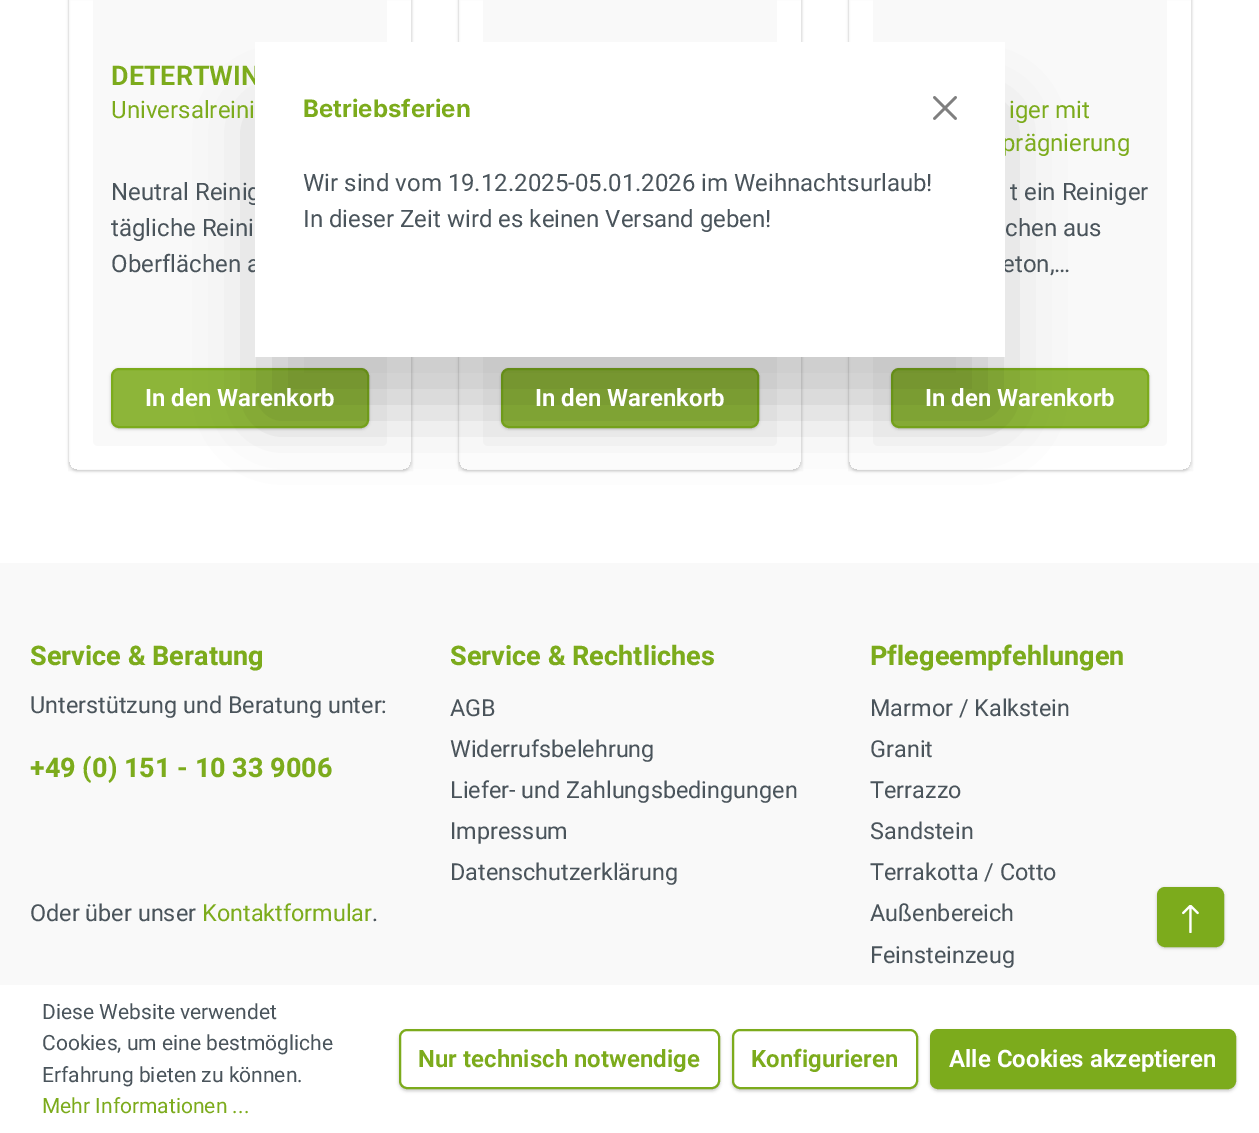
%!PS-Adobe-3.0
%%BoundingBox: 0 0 1259 1133
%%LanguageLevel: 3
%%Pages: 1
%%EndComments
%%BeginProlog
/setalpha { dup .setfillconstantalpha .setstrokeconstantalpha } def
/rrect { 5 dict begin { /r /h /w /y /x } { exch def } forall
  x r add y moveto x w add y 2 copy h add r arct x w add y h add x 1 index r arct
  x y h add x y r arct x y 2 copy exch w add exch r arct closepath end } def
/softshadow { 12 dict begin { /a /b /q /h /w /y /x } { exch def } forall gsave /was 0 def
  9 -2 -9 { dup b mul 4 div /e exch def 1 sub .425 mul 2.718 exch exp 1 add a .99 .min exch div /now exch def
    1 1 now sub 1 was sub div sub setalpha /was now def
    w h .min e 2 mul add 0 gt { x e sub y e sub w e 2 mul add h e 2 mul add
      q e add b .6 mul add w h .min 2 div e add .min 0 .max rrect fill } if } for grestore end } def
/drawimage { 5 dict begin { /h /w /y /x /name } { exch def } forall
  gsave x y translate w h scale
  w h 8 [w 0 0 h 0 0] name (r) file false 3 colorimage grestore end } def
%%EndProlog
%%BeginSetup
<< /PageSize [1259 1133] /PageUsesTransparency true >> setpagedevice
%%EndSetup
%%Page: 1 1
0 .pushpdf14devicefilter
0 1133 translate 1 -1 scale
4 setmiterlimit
1 setgray
0 0 1259 1133 rectfill
0.976 setgray
2 setlinewidth
69 -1 343 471 rectstroke
gsave
newpath 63 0 moveto 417 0 lineto 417 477 lineto 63 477 lineto closepath 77 -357 moveto 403 -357 lineto 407.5 -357 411 -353.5 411 -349 curveto 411 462 lineto 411 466.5 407.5 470 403 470 curveto 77 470 lineto 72.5 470 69 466.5 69 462 curveto 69 -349 lineto 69 -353.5 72.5 -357 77 -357 curveto closepath eoclip newpath
0 setgray
69 -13 342 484 8 1.5 0.2 softshadow
grestore
93 -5 294 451 5 rrect fill
0 setgray
111 369 258 60 8 1.5 0.2 softshadow
0.553 0.71 0.224 setrgbcolor
112 369 256 58 7 rrect gsave fill grestore
0.486 0.671 0.11 setrgbcolor
stroke
0.976 setgray
459 -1 343 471 rectstroke
gsave
newpath 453 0 moveto 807 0 lineto 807 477 lineto 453 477 lineto closepath 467 -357 moveto 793 -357 lineto 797.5 -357 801 -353.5 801 -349 curveto 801 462 lineto 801 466.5 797.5 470 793 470 curveto 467 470 lineto 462.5 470 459 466.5 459 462 curveto 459 -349 lineto 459 -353.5 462.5 -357 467 -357 curveto closepath eoclip newpath
0 setgray
459 -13 342 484 8 1.5 0.2 softshadow
grestore
483 -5 294 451 5 rrect fill
0 setgray
501 369 258 60 8 1.5 0.2 softshadow
0.553 0.71 0.224 setrgbcolor
502 369 256 58 7 rrect gsave fill grestore
0.486 0.671 0.11 setrgbcolor
stroke
0.976 setgray
849 -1 343 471 rectstroke
gsave
newpath 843 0 moveto 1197 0 lineto 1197 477 lineto 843 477 lineto closepath 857 -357 moveto 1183 -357 lineto 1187.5 -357 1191 -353.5 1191 -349 curveto 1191 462 lineto 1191 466.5 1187.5 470 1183 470 curveto 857 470 lineto 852.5 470 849 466.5 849 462 curveto 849 -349 lineto 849 -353.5 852.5 -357 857 -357 curveto closepath eoclip newpath
0 setgray
849 -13 342 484 8 1.5 0.2 softshadow
grestore
873 -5 294 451 5 rrect fill
0 setgray
891 369 258 60 8 1.5 0.2 softshadow
0.553 0.71 0.224 setrgbcolor
892 369 256 58 7 rrect gsave fill grestore
0.486 0.671 0.11 setrgbcolor
stroke
0 setgray
264 116 732 297 0 32 0.2 softshadow
0.976 setgray
0 563 1259 422 rectfill
0 setgray
1157 888 67 60 8 1.5 0.2 softshadow
0.486 0.671 0.11 setrgbcolor
1158 888 65 58 7 rrect gsave fill grestore
stroke
(images/2.raw) 1182 905 17 28 drawimage
gsave
newpath 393 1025 moveto 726 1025 lineto 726 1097 lineto 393 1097 lineto closepath 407 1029 moveto 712 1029 lineto 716.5 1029 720 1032.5 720 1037 curveto 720 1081 lineto 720 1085.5 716.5 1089 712 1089 curveto 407 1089 lineto 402.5 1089 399 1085.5 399 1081 curveto 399 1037 lineto 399 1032.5 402.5 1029 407 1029 curveto closepath eoclip newpath
0 setgray
399 1031 321 60 8 1.5 0.2 softshadow
grestore
400 1030 319 58 7 rrect stroke
gsave
newpath 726 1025 moveto 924 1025 lineto 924 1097 lineto 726 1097 lineto closepath 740 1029 moveto 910 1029 lineto 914.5 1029 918 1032.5 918 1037 curveto 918 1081 lineto 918 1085.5 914.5 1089 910 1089 curveto 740 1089 lineto 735.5 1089 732 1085.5 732 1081 curveto 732 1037 lineto 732 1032.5 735.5 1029 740 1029 curveto closepath eoclip newpath
0 setgray
732 1031 186 60 8 1.5 0.2 softshadow
grestore
733 1030 184 58 7 rrect stroke
0 setgray
930 1031 306 60 8 1.5 0.2 softshadow
0.486 0.671 0.11 setrgbcolor
931 1030 304 58 7 rrect gsave fill grestore
stroke
/Heebo-SemiBold [27 0 0 -27 0 0] selectfont
111 85 moveto (DETERTWIN) show
/Heebo-Regular [24 0 0 -24 0 0] selectfont
111 118 moveto (Universalreini) show
0.29 0.329 0.357 setrgbcolor
111 200 moveto (Neutral Reinig) show
111 236 moveto (tägliche Reini) show
111 272 moveto (Oberflächen a) show
/Heebo-SemiBold [24 0 0 -24 0 0] selectfont
1 setgray
145 406 moveto (In den Warenkorb) show
535 406 moveto (In den Warenkorb) show
/Heebo-Regular [24 0 0 -24 0 0] selectfont
0.486 0.671 0.11 setrgbcolor
1009 118 moveto (iger mit) show
1002 151 moveto (prägnierung) show
0.29 0.329 0.357 setrgbcolor
1010 200 moveto (t ein Reiniger) show
1005 236 moveto (chen aus) show
1002 272 moveto (eton,…) show
/Heebo-SemiBold [24 0 0 -24 0 0] selectfont
1 setgray
925 406 moveto (In den Warenkorb) show
255 42 750 315 rectfill
/Inter-Bold [24 0 0 -24 0 0] selectfont
0.486 0.671 0.11 setrgbcolor
303 117 moveto (Betriebsferien) show
(images/1.raw) 933 96 24 24 drawimage
/Heebo-Regular [24 0 0 -24 0 0] selectfont
0.29 0.329 0.357 setrgbcolor
303 191 moveto (Wir sind vom 19.12.2025-05.01.2026 im Weihnachtsurlaub!) show
303 227 moveto (In dieser Zeit wird es keinen Versand geben!) show
/Heebo-Bold [27 0 0 -27 0 0] selectfont
0.486 0.671 0.11 setrgbcolor
30 665 moveto (Service & Beratung) show
/Heebo-Regular [23.4 0 0 -23.4 0 0] selectfont
0.29 0.329 0.357 setrgbcolor
30 713 moveto (Unterstützung und Beratung unter:) show
/Heebo-Bold [27 0 0 -27 0 0] selectfont
0.486 0.671 0.11 setrgbcolor
30 777 moveto (+49 \(0\) 151 - 10 33 9006) show
/Heebo-Regular [23.4 0 0 -23.4 0 0] selectfont
0.29 0.329 0.357 setrgbcolor
30 921 moveto (Oder über unser) show
0.486 0.671 0.11 setrgbcolor
202 921 moveto (Kontaktformular) show
0.29 0.329 0.357 setrgbcolor
372 921 moveto (.) show
/Heebo-Bold [27 0 0 -27 0 0] selectfont
0.486 0.671 0.11 setrgbcolor
450 665 moveto (Service & Rechtliches) show
/Heebo-Regular [23.4 0 0 -23.4 0 0] selectfont
0.29 0.329 0.357 setrgbcolor
450 716 moveto (AGB) show
450 757 moveto (Widerrufsbelehrung) show
450 798 moveto (Liefer- und Zahlungsbedingungen) show
450 839 moveto (Impressum) show
450 880 moveto (Datenschutzerklärung) show
/Heebo-Bold [27 0 0 -27 0 0] selectfont
0.486 0.671 0.11 setrgbcolor
870 665 moveto (Pflegeempfehlungen) show
/Heebo-Regular [23.4 0 0 -23.4 0 0] selectfont
0.29 0.329 0.357 setrgbcolor
870 716 moveto (Marmor / Kalkstein) show
870 757 moveto (Granit) show
870 798 moveto (Terrazzo) show
870 839 moveto (Sandstein) show
870 880 moveto (Terrakotta / Cotto) show
870 921 moveto (Außenbereich) show
870 963 moveto (Feinsteinzeug) show
/Heebo-Regular [21 0 0 -21 0 0] selectfont
42 1019 moveto (Diese Website verwendet) show
42 1050 moveto (Cookies, um eine bestmögliche) show
42 1082 moveto (Erfahrung bieten zu können.) show
0.486 0.671 0.11 setrgbcolor
42 1113 moveto (Mehr Informationen ...) show
/Heebo-SemiBold [24 0 0 -24 0 0] selectfont
418 1067 moveto (Nur technisch notwendige) show
751 1067 moveto (Konfigurieren) show
1 setgray
949 1067 moveto (Alle Cookies akzeptieren) show
.poppdf14devicefilter showpage
%%EOF
